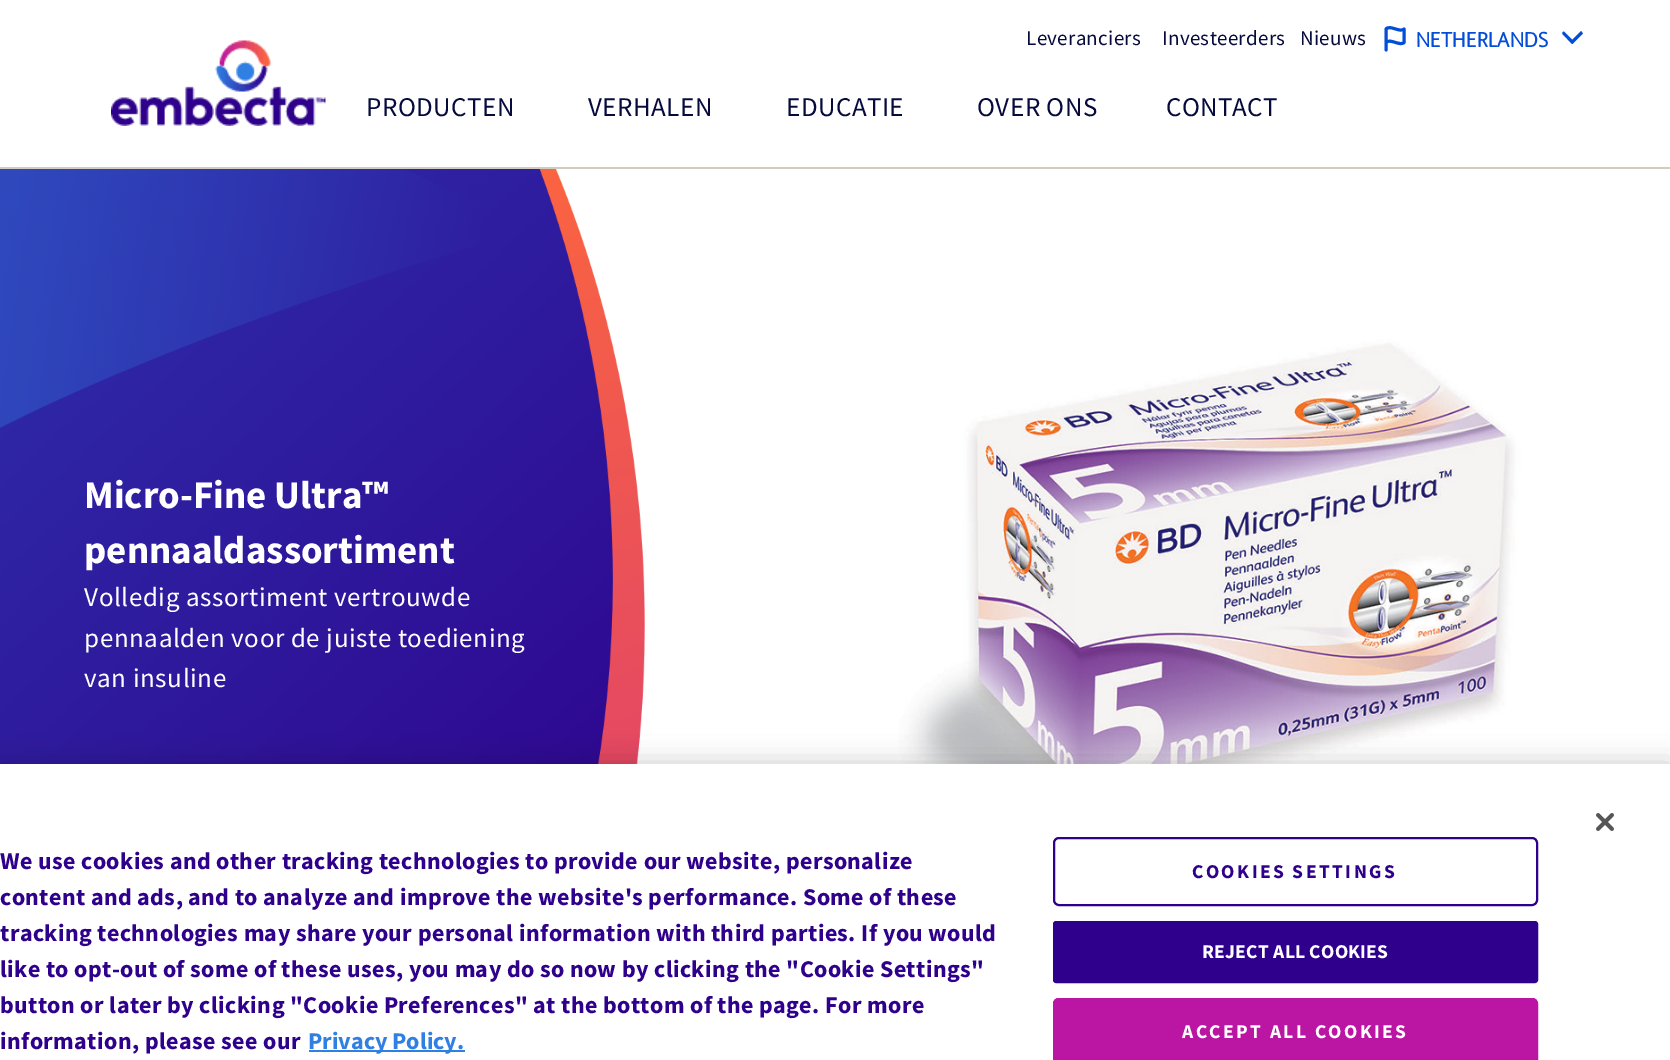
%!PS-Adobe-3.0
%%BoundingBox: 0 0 1670 1060
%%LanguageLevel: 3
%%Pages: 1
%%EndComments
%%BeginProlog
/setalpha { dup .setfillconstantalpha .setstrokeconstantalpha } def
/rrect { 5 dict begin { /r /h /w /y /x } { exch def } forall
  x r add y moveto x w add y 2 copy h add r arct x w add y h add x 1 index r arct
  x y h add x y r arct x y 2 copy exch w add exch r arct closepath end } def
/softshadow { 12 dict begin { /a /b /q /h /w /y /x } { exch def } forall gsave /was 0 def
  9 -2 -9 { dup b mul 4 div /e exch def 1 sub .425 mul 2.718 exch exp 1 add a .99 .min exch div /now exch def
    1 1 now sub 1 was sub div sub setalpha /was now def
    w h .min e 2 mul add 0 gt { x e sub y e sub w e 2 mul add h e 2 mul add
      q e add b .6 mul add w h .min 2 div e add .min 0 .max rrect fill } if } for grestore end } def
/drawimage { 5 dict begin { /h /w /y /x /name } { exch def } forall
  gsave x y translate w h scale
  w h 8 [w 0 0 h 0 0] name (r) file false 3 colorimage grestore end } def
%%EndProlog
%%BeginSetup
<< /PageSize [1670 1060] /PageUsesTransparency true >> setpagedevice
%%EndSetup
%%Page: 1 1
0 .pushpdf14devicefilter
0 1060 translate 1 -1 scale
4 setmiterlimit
1 setgray
0 0 1670 1060 rectfill
0.82 0.8 0.741 setrgbcolor
0 167 1670 2 rectfill
(images/1.raw) 111 40 215 86 drawimage
0.016 0.306 0.843 setrgbcolor
3 setlinewidth
1 setlinecap
1 setlinejoin
newpath 1386 42.5 moveto 1390 38 1400 46.5 1404 42.5 curveto 1404 29 lineto 1400 33 1390 24.5 1386 29 curveto closepath 1386 50 moveto 1386 42.5 lineto stroke
newpath 1564.5 32 moveto 1574 41.5 lineto 1572 44 lineto 1562.5 34 lineto 1561.5 32.5 1563.5 31 1564.5 32 curveto closepath fill
newpath 1570.5 41.5 moveto 1581 31 lineto 1583 33.5 lineto 1572.5 44 lineto closepath fill
(images/2.raw) 0 169 645 595 drawimage
(images/3.raw) 812 246 858 518 drawimage
0 setgray
0 764 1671 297 0 13.5 0.2 softshadow
1 setgray
0 764 1670 296 rectfill
(images/4.raw) 1596 813 18 18 drawimage
0.188 0.498 0.886 setrgbcolor
309 1050 156 2 rectfill
0.18 0 0.545 setrgbcolor
2 setlinewidth
0 setlinecap
0 setlinejoin
1054 838 483 67 5 rrect stroke
1054 922 483 60 2 rrect gsave fill grestore
stroke
0.733 0.086 0.639 setrgbcolor
newpath 1059 998 moveto 1532 998 lineto 1535.5 998 1538 1000.5 1538 1004 curveto 1538 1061 lineto 1053 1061 lineto 1053 1004 lineto 1053 1000.5 1055.5 998 1059 998 curveto closepath fill
1054 999 483 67 5 rrect stroke
/SourceSansPro-Regular [21 0 0 -21 0 0] selectfont
0.024 0.039 0.239 setrgbcolor
1026 45 moveto 0.3 0 (Leveranciers) ashow
1162 45 moveto 0.3 0 (Investeerders) ashow
1300 45 moveto 0.3 0 (Nieuws) ashow
/SourceSansPro-Regular [27 0 0 -27 0 0] selectfont
366 116 moveto 0.5 0 (PRODUCTEN) ashow
588 116 moveto 0.5 0 (VERHALEN) ashow
786 116 moveto 0.5 0 (EDUCATIE) ashow
977 116 moveto 0.5 0 (OVER ONS) ashow
1166 116 moveto 0.3 0 (CONTACT) ashow
/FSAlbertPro-Bold [21 0 0 -21 0 0] selectfont
0.016 0.306 0.843 setrgbcolor
1416 47 moveto 0.3 0 (NETHERLANDS) ashow
/SourceSansPro-Bold [39 0 0 -39 0 0] selectfont
1 setgray
84 508 moveto (Micro-Fine Ultra™) show
84 563 moveto (pennaaldassortiment) show
/SourceSansPro-Regular [27 0 0 -27 0 0] selectfont
84 606 moveto 0.6 0 (Volledig assortiment vertrouwde) ashow
84 647 moveto 0.6 0 (pennaalden voor de juiste toediening) ashow
84 687 moveto 0.6 0 (van insuline) ashow
/SourceSansPro-Bold [24 0 0 -24 0 0] selectfont
0.18 0 0.545 setrgbcolor
0 869 moveto 0.4 0 (We use cookies and other tracking technologies to provide our website, personalize) ashow
0 905 moveto 0.4 0 (content and ads, and to analyze and improve the website's performance. Some of these) ashow
0 941 moveto 0.4 0 (tracking technologies may share your personal information with third parties. If you would) ashow
0 977 moveto 0.4 0 (like to opt-out of some of these uses, you may do so now by clicking the "Cookie Settings") ashow
0 1013 moveto 0.4 0 (button or later by clicking "Cookie Preferences" at the bottom of the page. For more) ashow
0 1049 moveto 0.4 0 (information, please see our) ashow
0.188 0.498 0.886 setrgbcolor
308 1049 moveto (Privacy Policy.) show
/SourceSansPro-Bold [19.5 0 0 -19.5 0 0] selectfont
0.18 0 0.545 setrgbcolor
1192 878 moveto 2.4 0 (COOKIES SETTINGS) ashow
1 setgray
1202 958 moveto 0.25 0 (REJECT ALL COOKIES) ashow
1182 1038 moveto 2.4 0 (ACCEPT ALL COOKIES) ashow
.poppdf14devicefilter showpage
%%EOF
